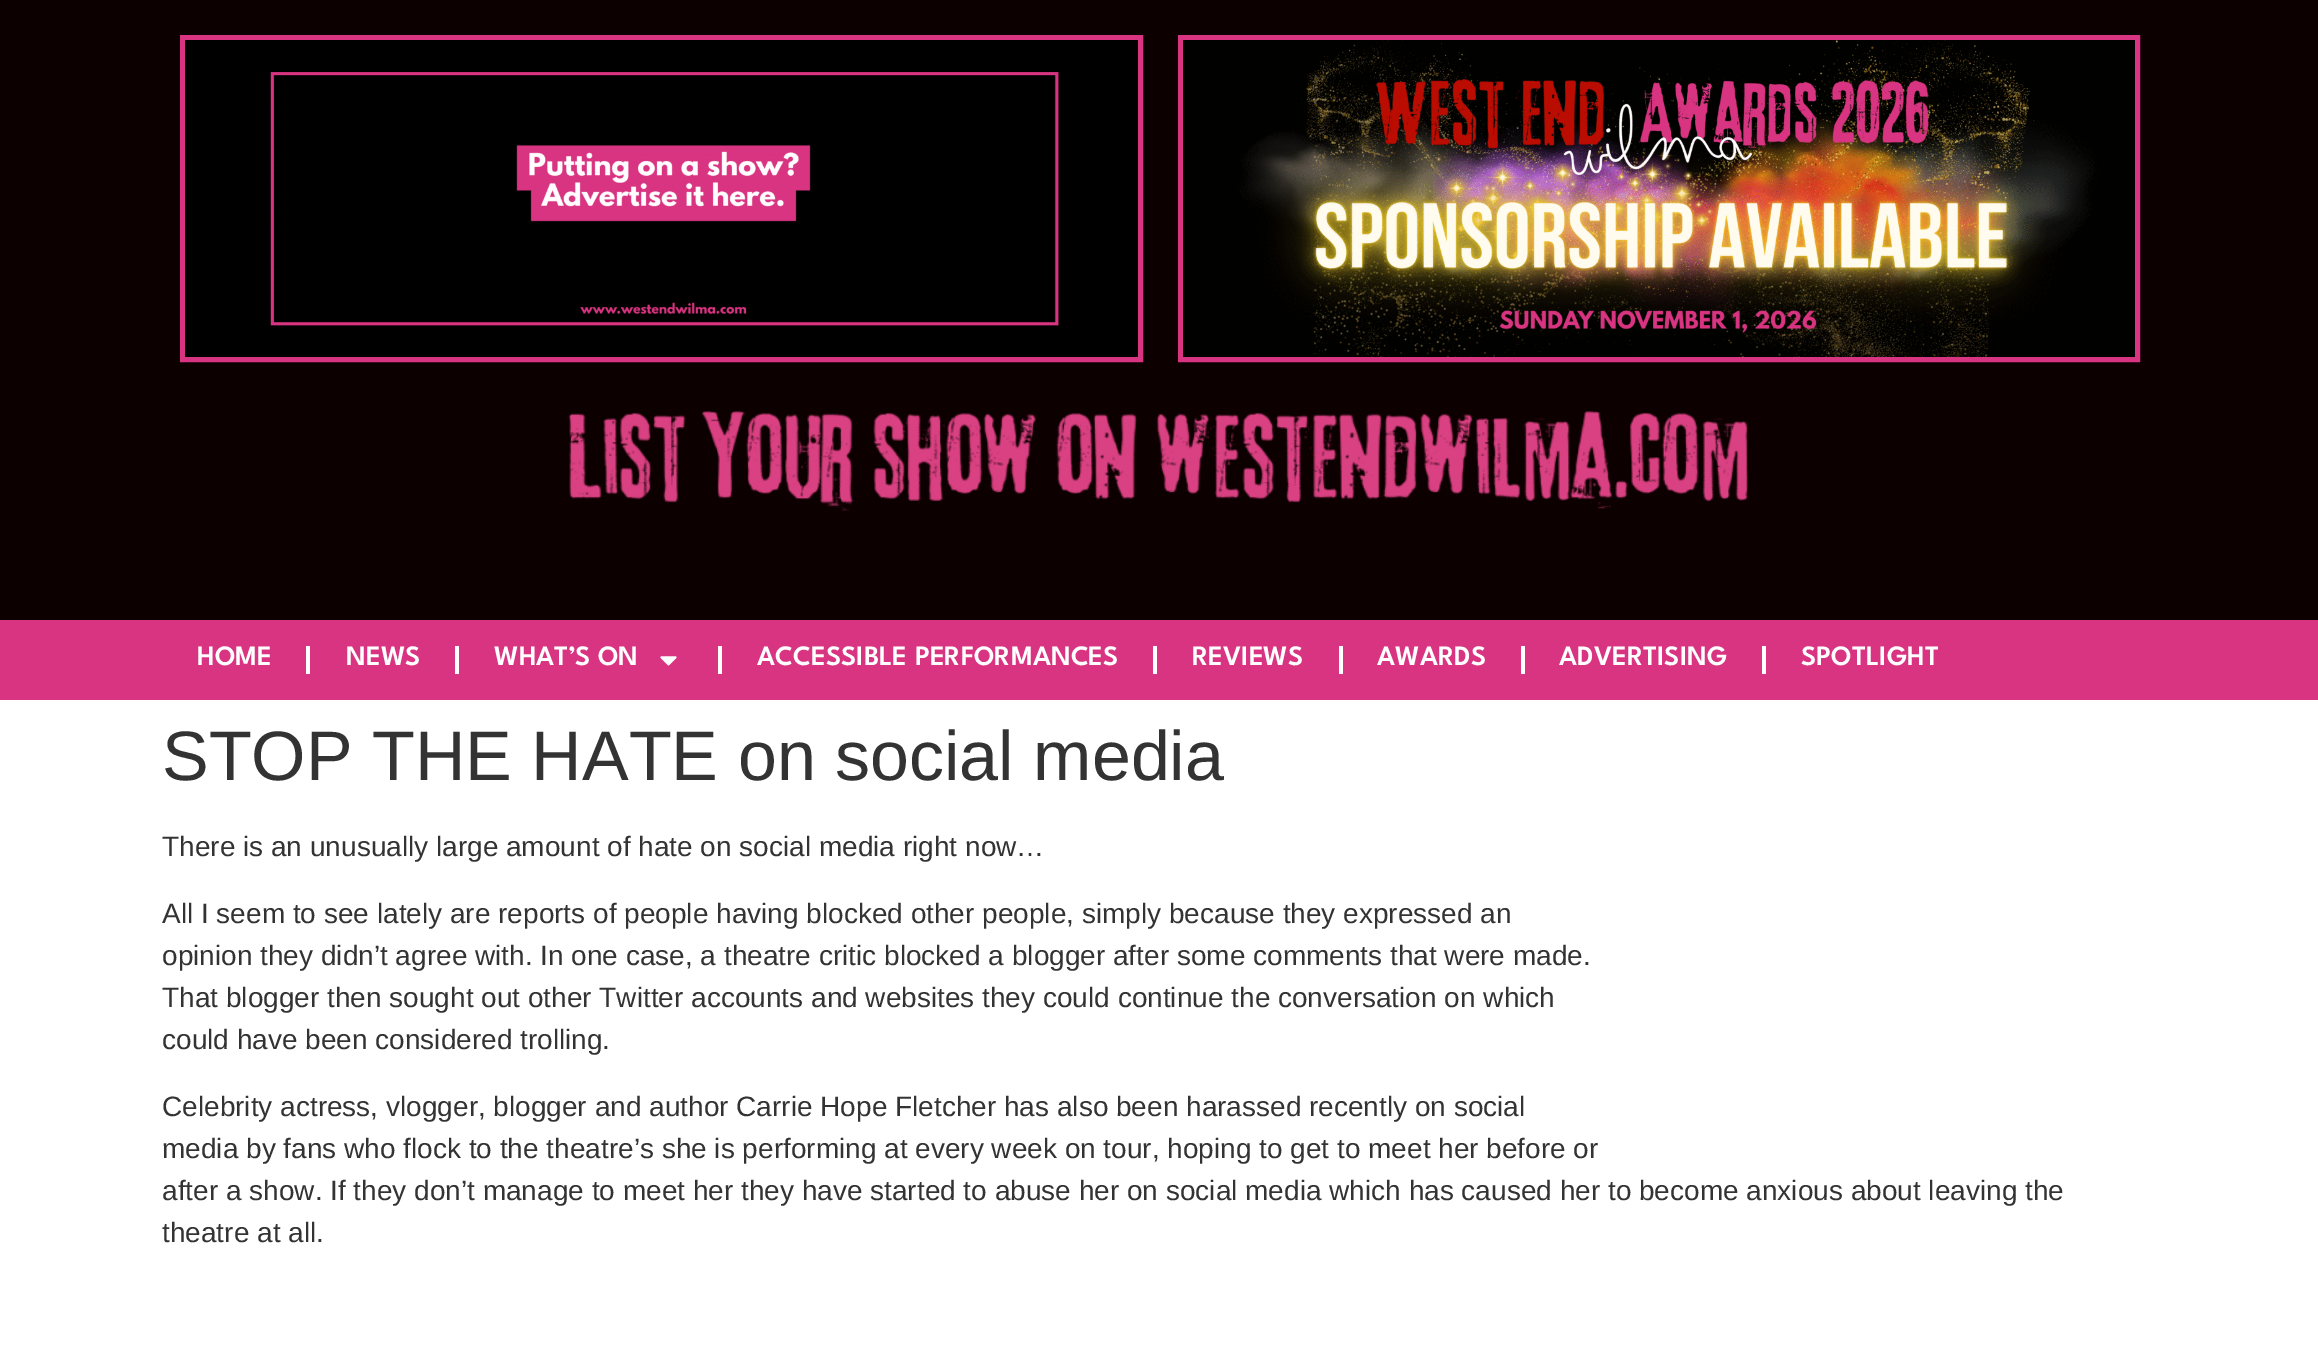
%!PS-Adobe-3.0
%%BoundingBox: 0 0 2318 1358
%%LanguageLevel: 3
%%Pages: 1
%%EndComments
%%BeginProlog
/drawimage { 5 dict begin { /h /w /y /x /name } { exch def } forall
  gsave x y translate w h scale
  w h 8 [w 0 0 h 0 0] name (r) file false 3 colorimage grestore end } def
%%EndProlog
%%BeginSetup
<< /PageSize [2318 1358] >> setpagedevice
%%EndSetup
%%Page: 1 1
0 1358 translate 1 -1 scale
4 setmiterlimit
1 setgray
0 0 2318 1358 rectfill
0.047 0 0 setrgbcolor
0 0 2318 620 rectfill
0.851 0.204 0.506 setrgbcolor
5 setlinewidth
182.5 37.5 958 322 rectstroke
(images/1.raw) 185 40 953 317 drawimage
1180.5 37.5 957 322 rectstroke
(images/2.raw) 1183 40 952 317 drawimage
(images/3.raw) 568 410 1181 102 drawimage
0 620 2318 80 rectfill
1 setgray
306 646 4 28 rectfill
455 646 4 28 rectfill
(images/4.raw) 660 656 17 10 drawimage
718 646 4 28 rectfill
1153 646 4 28 rectfill
1339 646 4 28 rectfill
1521 646 4 28 rectfill
1762 646 4 28 rectfill
/LeagueSpartan-SemiBold [28 0 0 -28 0 0] selectfont
197 665 moveto (HOME) show
346 665 moveto (NEWS) show
494 665 moveto (WHAT’S ON) show
757 665 moveto (ACCESSIBLE PERFORMANCES) show
1192 665 moveto (REVIEWS) show
1377 665 moveto (AWARDS) show
1559 665 moveto (ADVERTISING) show
1801 665 moveto (SPOTLIGHT) show
/LiberationSans-Regular [70 0 0 -70 0 0] selectfont
0.2 setgray
162 780 moveto (STOP THE HATE on social media) show
/LiberationSans-Regular [28 0 0 -28 0 0] selectfont
162 856 moveto (There is an unusually large amount of hate on social media right now…) show
162 923 moveto (All I seem to see lately are reports of people having blocked other people, simply because they expressed an) show
162 965 moveto (opinion they didn’t agree with. In one case, a theatre critic blocked a blogger after some comments that were made.) show
162 1007 moveto (That blogger then sought out other Twitter accounts and websites they could continue the conversation on which) show
162 1049 moveto (could have been considered trolling.) show
162 1116 moveto (Celebrity actress, vlogger, blogger and author Carrie Hope Fletcher has also been harassed recently on social) show
162 1158 moveto (media by fans who flock to the theatre’s she is performing at every week on tour, hoping to get to meet her before or) show
162 1200 moveto (after a show. If they don’t manage to meet her they have started to abuse her on social media which has caused her to become anxious about leaving the) show
162 1242 moveto (theatre at all.) show
showpage
%%EOF
